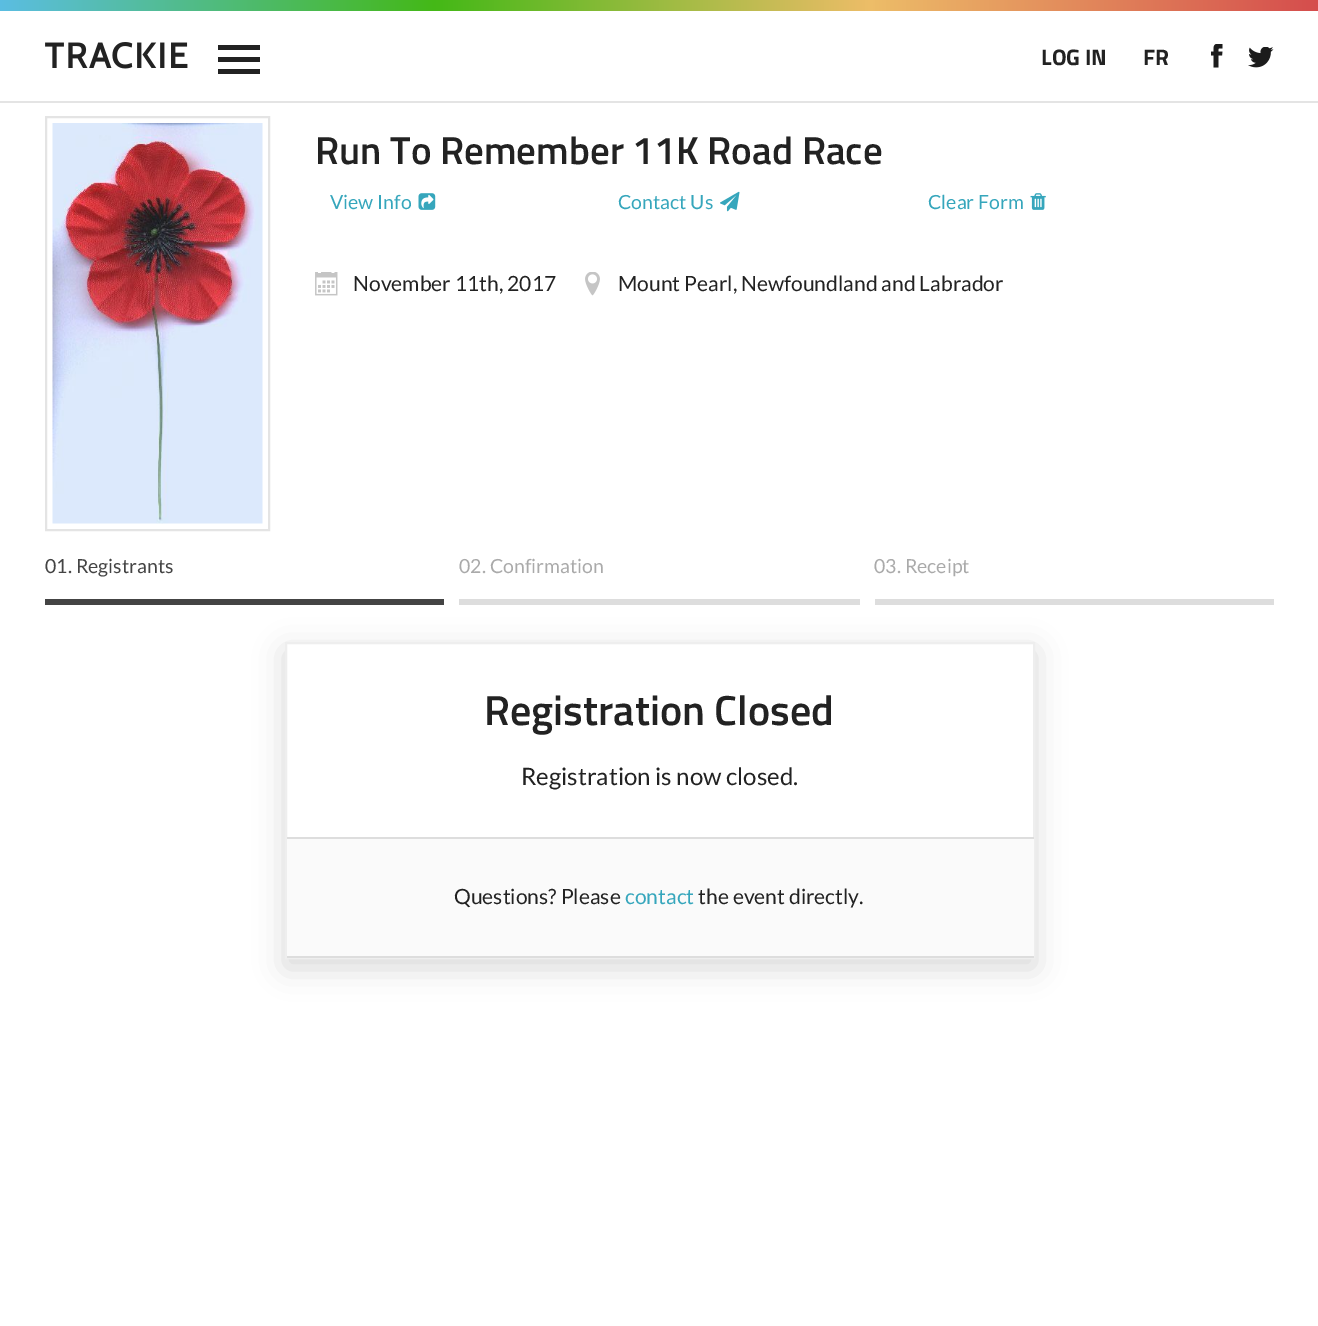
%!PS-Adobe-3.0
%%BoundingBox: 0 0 1318 1326
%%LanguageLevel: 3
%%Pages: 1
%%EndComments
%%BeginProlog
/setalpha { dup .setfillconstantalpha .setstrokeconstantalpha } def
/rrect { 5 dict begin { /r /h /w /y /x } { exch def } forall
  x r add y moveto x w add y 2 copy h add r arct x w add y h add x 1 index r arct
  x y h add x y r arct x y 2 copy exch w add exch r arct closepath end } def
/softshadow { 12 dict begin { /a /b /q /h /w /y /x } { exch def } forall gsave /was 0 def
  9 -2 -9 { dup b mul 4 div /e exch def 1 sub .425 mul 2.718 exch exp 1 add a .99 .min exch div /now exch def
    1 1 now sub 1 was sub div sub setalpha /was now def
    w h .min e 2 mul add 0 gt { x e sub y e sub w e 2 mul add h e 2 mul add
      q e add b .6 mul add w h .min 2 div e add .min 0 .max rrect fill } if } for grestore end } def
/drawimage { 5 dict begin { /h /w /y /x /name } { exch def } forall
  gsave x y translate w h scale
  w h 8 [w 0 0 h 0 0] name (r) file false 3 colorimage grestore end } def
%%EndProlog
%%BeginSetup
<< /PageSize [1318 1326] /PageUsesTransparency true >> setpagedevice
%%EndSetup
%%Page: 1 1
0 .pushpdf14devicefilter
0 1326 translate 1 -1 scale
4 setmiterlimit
1 setgray
0 0 1318 1326 rectfill
0.894 setgray
0 101 1318 2 rectfill
gsave newpath 0 0 moveto 1318 0 lineto 1318 11 lineto 0 11 lineto closepath clip newpath
<< /ShadingType 2 /ColorSpace /DeviceRGB /Coords [0 5.3 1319 5.2] /Extend [true true] /Function << /FunctionType 3 /Domain [0 1] /Functions [<< /FunctionType 2 /Domain [0 1] /C0 [0.357 0.745 0.886] /C1 [0.267 0.722 0.09] /N 1 >> << /FunctionType 2 /Domain [0 1] /C0 [0.267 0.722 0.09] /C1 [0.929 0.741 0.408] /N 1 >> << /FunctionType 2 /Domain [0 1] /C0 [0.929 0.741 0.408] /C1 [0.835 0.302 0.302] /N 1 >>] /Bounds [0.33 0.66] /Encode [0 1 0 1 0 1] >> >> shfill grestore
(images/1.raw) 45 42 143 27 drawimage
0.133 setgray
218 45 42 5 rectfill
218 57 42 5 rectfill
218 69 42 5 rectfill
(images/2.raw) 1211 44 12 24 drawimage
(images/3.raw) 1248 47 26 21 drawimage
0.894 setgray
2 setlinewidth
46 117 223 413 rectstroke
(images/4.raw) 52 123 211 401 drawimage
(images/5.raw) 418 193 18 17 drawimage
(images/6.raw) 720 191 20 21 drawimage
(images/7.raw) 1030 193 16 17 drawimage
(images/8.raw) 315 272 23 24 drawimage
(images/9.raw) 585 272 15 24 drawimage
0.267 setgray
45 599 399 6 rectfill
0.867 setgray
459 599 401 6 rectfill
875 599 399 6 rectfill
0 setgray
285 651 750 317 0 15 0.15 softshadow
1 setgray
287 644 746 193 rectfill
0.933 setgray
286 643 748 315 rectstroke
0.98 setgray
287 839 747 117 rectfill
0.867 setgray
287 837 747 2 rectfill
287 956 747 2 rectfill
/TitilliumWeb-Bold [22.5 0 0 -22.5 0 0] selectfont
0.133 setgray
1041 65 moveto (LOG IN) show
1143 65 moveto (FR) show
/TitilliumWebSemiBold-SemiBold [39 0 0 -39 0 0] selectfont
315 164 moveto (Run To Remember 11K Road Race) show
/Lato-Regular [19.5 0 0 -19.5 0 0] selectfont
0.212 0.651 0.737 setrgbcolor
330 209 moveto (View Info) show
618 209 moveto (Contact Us) show
928 209 moveto (Clear Form) show
/Lato-Regular [21 0 0 -21 0 0] selectfont
0.133 setgray
353 291 moveto (November 11th, 2017) show
618 291 moveto (Mount Pearl, Newfoundland and Labrador) show
/Lato-Regular [19.5 0 0 -19.5 0 0] selectfont
0.267 setgray
45 573 moveto (01. Registrants) show
0.667 setgray
459 573 moveto (02. Confirmation) show
874 573 moveto (03. Receipt) show
/TitilliumWebSemiBold-SemiBold [42 0 0 -42 0 0] selectfont
0.133 setgray
484 725 moveto (Registration Closed) show
/Lato-Regular [24 0 0 -24 0 0] selectfont
521 785 moveto (Registration is now closed.) show
/Lato-Regular [21 0 0 -21 0 0] selectfont
454 904 moveto (Questions? Please) show
0.212 0.651 0.737 setrgbcolor
625 904 moveto (contact) show
0.133 setgray
698 904 moveto (the event directly.) show
.poppdf14devicefilter showpage
%%EOF
